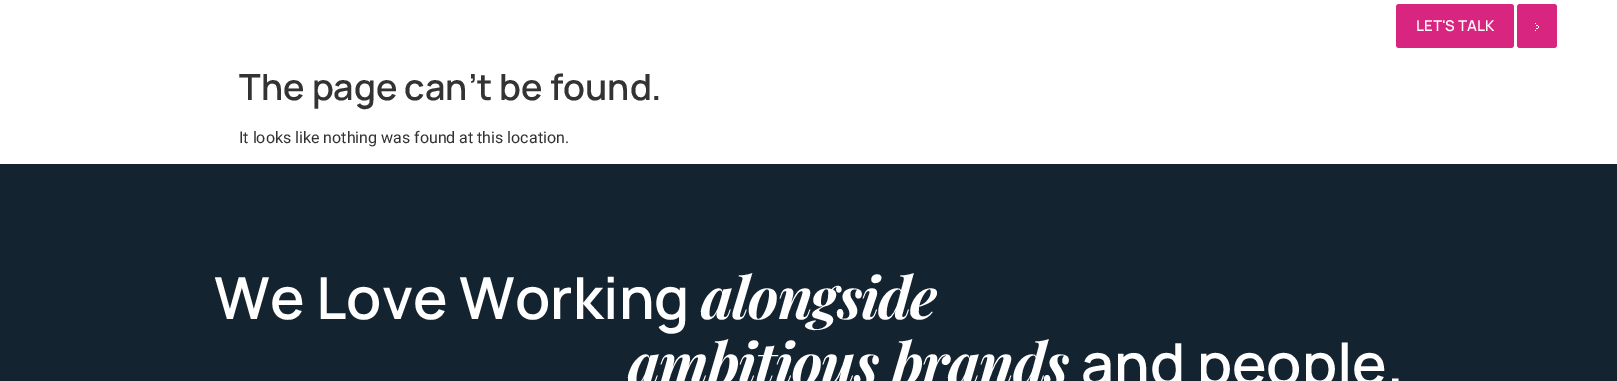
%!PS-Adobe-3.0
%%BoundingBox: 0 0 1617 381
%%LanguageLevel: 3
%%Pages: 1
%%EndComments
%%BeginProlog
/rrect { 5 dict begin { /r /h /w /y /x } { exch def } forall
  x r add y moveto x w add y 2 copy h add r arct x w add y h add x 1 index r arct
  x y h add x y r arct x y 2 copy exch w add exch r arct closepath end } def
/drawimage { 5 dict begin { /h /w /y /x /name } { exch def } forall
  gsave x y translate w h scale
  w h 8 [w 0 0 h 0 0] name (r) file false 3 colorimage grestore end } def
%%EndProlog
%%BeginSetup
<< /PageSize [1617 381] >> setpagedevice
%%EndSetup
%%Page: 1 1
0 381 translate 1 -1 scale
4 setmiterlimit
1 setgray
0 0 1617 381 rectfill
0.843 0.145 0.502 setrgbcolor
1396 4 118 44 3 rrect fill
1517 4 40 44 3 rrect fill
(images/1.raw) 1535 23 4 8 drawimage
0.078 0.137 0.188 setrgbcolor
0 164 1617 217 rectfill
/Manrope-SemiBold [15 0 0 -15 0 0] selectfont
1 setgray
1416 31 moveto (LET'S TALK) show
/Manrope-SemiBold [36 0 0 -36 0 0] selectfont
0.2 setgray
239 100 moveto (The page can’t be found.) show
/Roboto-Regular [16 0 0 -16 0 0] selectfont
239 143 moveto (It looks like nothing was found at this location.) show
/Manrope-SemiBold [58 0 0 -58 0 0] selectfont
1 setgray
214 319 moveto (We Love Working) show
/PlayfairDisplay-BoldItalic [58 0 0 -58 0 0] selectfont
701 319 moveto -1.25 0 (alongside) ashow
628 385 moveto -1.25 0 (ambitious brands) ashow
/Manrope-SemiBold [58 0 0 -58 0 0] selectfont
1081 385 moveto (and people.) show
showpage
%%EOF
